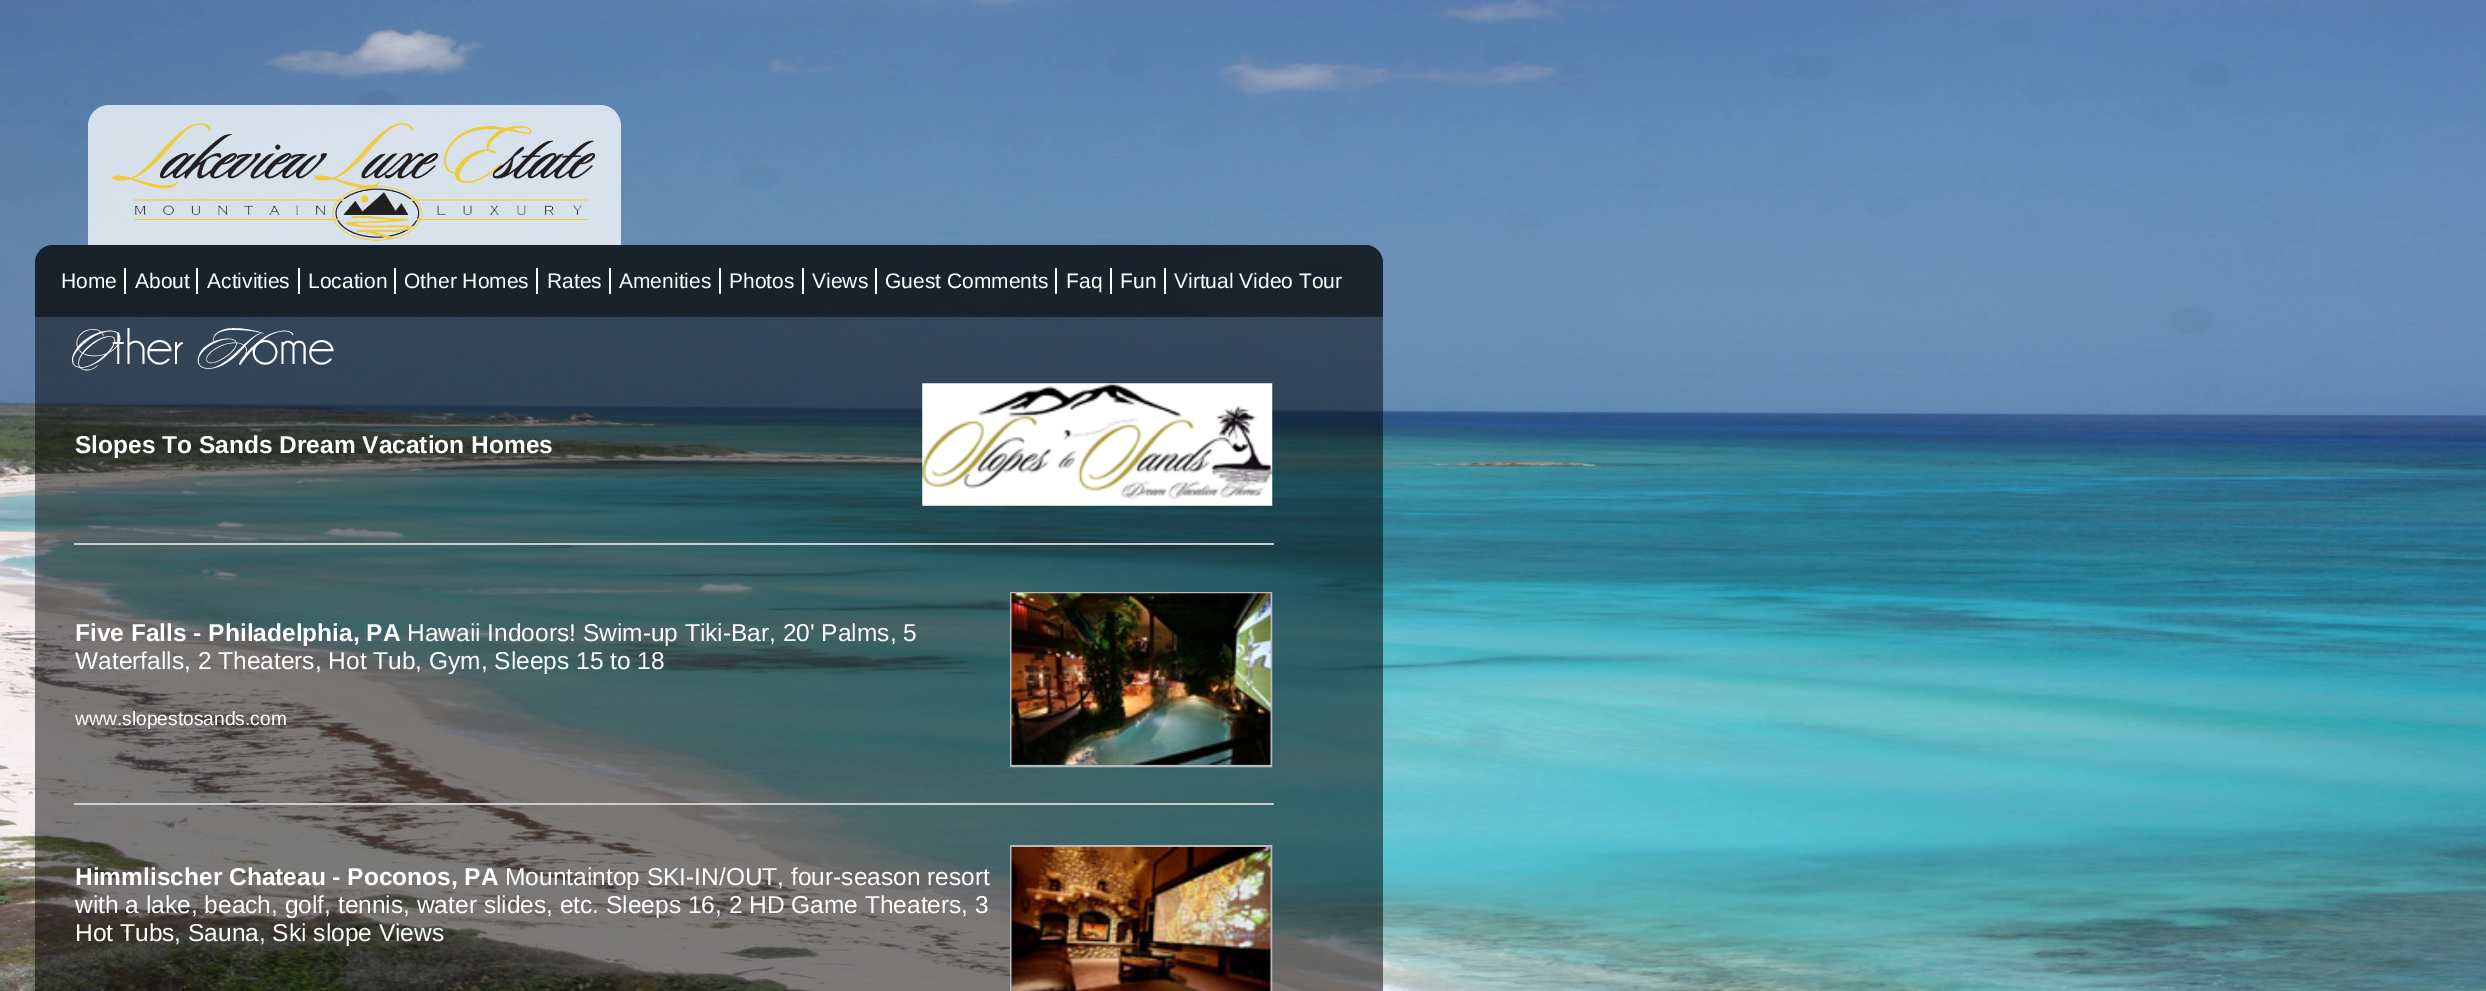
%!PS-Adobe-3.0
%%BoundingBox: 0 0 2486 991
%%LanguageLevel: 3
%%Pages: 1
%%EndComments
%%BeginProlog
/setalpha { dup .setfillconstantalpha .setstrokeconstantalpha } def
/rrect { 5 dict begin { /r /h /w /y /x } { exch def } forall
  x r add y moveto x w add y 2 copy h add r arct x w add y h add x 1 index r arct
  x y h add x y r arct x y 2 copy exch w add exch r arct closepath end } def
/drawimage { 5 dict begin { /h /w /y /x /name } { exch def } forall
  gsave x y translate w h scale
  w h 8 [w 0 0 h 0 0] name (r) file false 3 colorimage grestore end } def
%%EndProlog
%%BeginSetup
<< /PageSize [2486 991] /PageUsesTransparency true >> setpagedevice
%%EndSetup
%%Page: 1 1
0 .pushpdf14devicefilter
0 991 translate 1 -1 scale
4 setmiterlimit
1 setgray
0 0 2486 991 rectfill
(images/1.raw) 0 0 2486 991 drawimage
0.75 setalpha
newpath 109 105 moveto 600 105 lineto 611.5 105 621 114.5 621 126 curveto 621 245 lineto 88 245 lineto 88 126 lineto 88 114.5 97.5 105 109 105 curveto closepath fill
1 setalpha
(images/2.raw) 112 123 484 118 drawimage
0.5 setalpha
0 setgray
35 245 1348 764 18 rrect fill
newpath 53 245 moveto 1365 245 lineto 1375 245 1383 253 1383 263 curveto 1383 317 lineto 35 317 lineto 35 263 lineto 35 253 43 245 53 245 curveto closepath fill
1 setalpha
1 setgray
124 268 2 26 rectfill
196 268 2 26 rectfill
298 268 2 26 rectfill
394 268 2 26 rectfill
536 268 2 26 rectfill
609 268 2 26 rectfill
719 268 2 26 rectfill
802 268 2 26 rectfill
875 268 2 26 rectfill
1055 268 2 26 rectfill
1110 268 2 26 rectfill
1164 268 2 26 rectfill
(images/3.raw) 922 383 351 123 drawimage
0.8 setgray
74 543 1200 2 rectfill
0.733 setgray
2 setlinewidth
1011 593 260 173 rectstroke
(images/4.raw) 1011 593 260 172 drawimage
0.8 setgray
74 803 1200 2 rectfill
0.733 setgray
1011 846 260 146 rectstroke
(images/5.raw) 1011 847 260 144 drawimage
/LiberationSans-Regular [21 0 0 -21 0 0] selectfont
1 setgray
61 288 moveto (Home) show
135 288 moveto (About) show
207 288 moveto (Activities) show
308 288 moveto (Location) show
404 288 moveto (Other Homes) show
547 288 moveto (Rates) show
619 288 moveto (Amenities) show
729 288 moveto (Photos) show
812 288 moveto (Views) show
885 288 moveto (Guest Comments) show
1066 288 moveto (Faq) show
1120 288 moveto (Fun) show
1174 288 moveto (Virtual Video Tour) show
/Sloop-Regular [52 0 0 -52 0 0] selectfont
67 364 moveto (O) show
/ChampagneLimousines-Regular [52 0 0 -52 0 0] selectfont
112 364 moveto (ther) show
/Sloop-Regular [52 0 0 -52 0 0] selectfont
196 364 moveto (H) show
/ChampagneLimousines-Regular [52 0 0 -52 0 0] selectfont
251 364 moveto (ome) show
/LiberationSans-Bold [24.5 0 0 -24.5 0 0] selectfont
75 453 moveto (Slopes To Sands Dream Vacation Homes) show
75 641 moveto (Five Falls - Philadelphia, PA) show
/LiberationSans-Regular [24.5 0 0 -24.5 0 0] selectfont
407 641 moveto (Hawaii Indoors! Swim-up Tiki-Bar, 20' Palms, 5) show
75 669 moveto (Waterfalls, 2 Theaters, Hot Tub, Gym, Sleeps 15 to 18) show
/LiberationSans-Regular [19.25 0 0 -19.25 0 0] selectfont
75 725 moveto (www.slopestosands.com) show
/LiberationSans-Bold [24.5 0 0 -24.5 0 0] selectfont
75 885 moveto (Himmlischer Chateau - Poconos, PA) show
/LiberationSans-Regular [24.5 0 0 -24.5 0 0] selectfont
505 885 moveto (Mountaintop SKI-IN/OUT, four-season resort) show
75 913 moveto (with a lake, beach, golf, tennis, water slides, etc. Sleeps 16, 2 HD Game Theaters, 3) show
75 941 moveto (Hot Tubs, Sauna, Ski slope Views) show
.poppdf14devicefilter showpage
%%EOF
